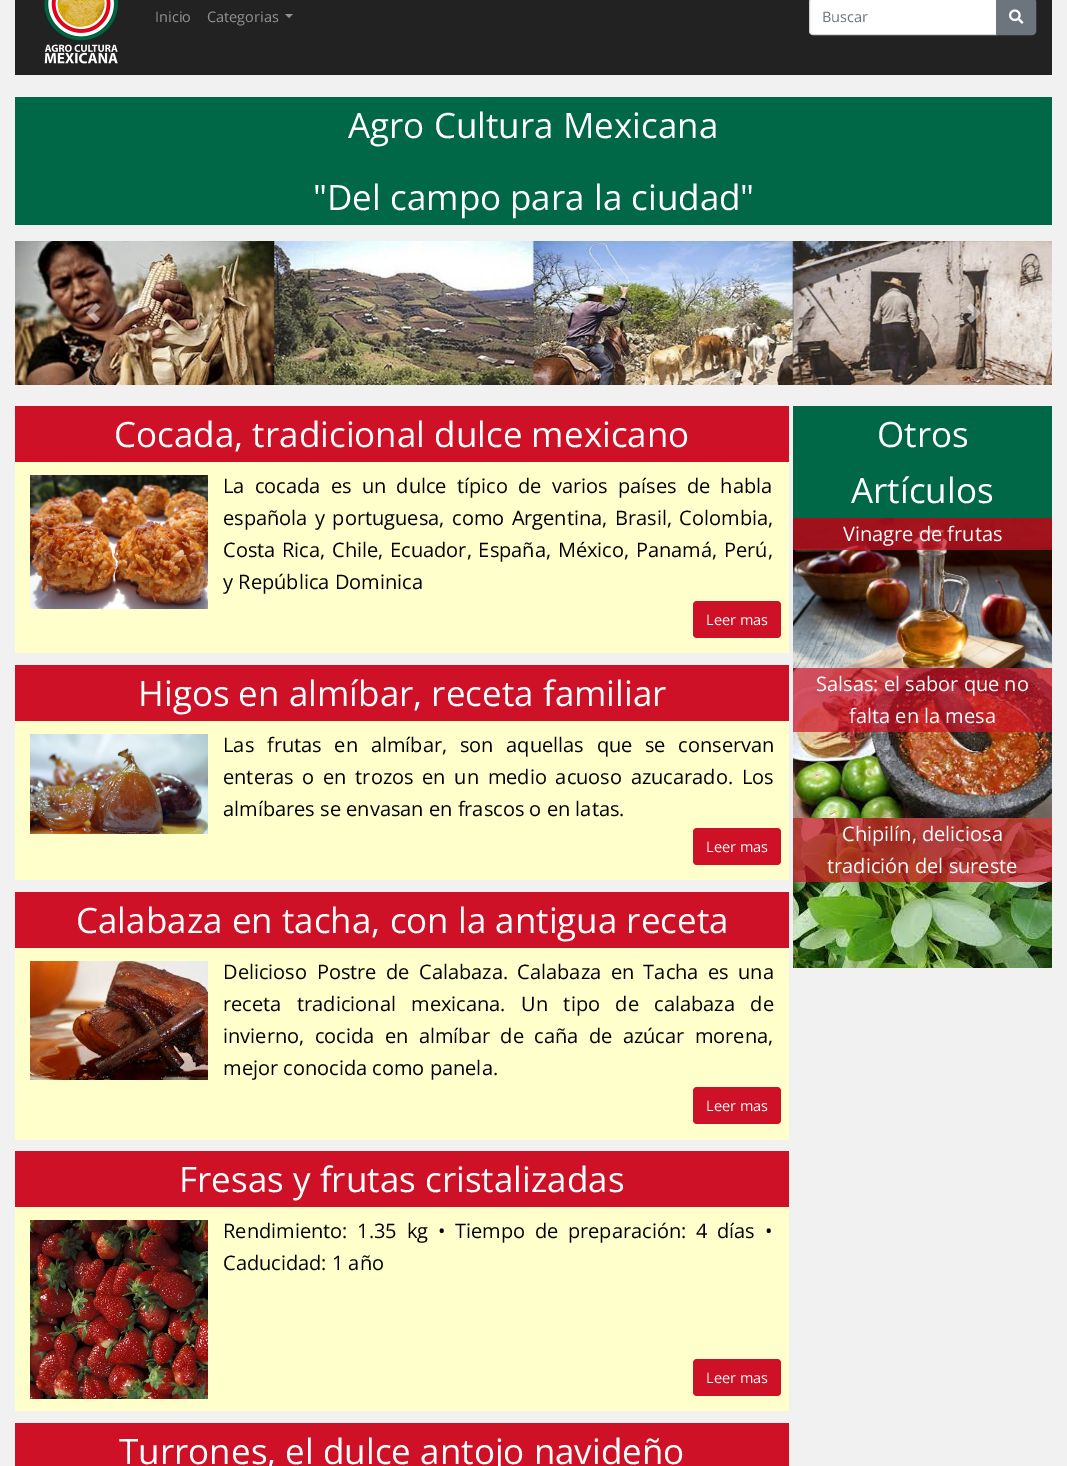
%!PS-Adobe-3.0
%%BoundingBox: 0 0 1067 1466
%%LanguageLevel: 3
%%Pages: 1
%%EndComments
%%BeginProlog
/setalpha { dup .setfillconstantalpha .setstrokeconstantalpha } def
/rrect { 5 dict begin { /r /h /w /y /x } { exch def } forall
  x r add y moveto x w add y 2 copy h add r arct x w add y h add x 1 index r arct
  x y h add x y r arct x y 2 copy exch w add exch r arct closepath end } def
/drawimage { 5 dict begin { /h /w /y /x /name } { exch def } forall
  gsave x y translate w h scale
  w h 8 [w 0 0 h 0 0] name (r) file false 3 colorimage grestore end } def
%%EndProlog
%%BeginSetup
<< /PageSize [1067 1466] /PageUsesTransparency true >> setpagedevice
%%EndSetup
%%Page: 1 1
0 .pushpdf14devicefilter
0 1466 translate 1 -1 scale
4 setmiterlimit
0.945 setgray
0 0 1067 1466 rectfill
0.133 setgray
15 0 1037 75 rectfill
(images/1.raw) 44 0 74 64 drawimage
0.569 setgray
newpath 285 14 moveto 293 14 lineto 289 18 lineto closepath fill
1 setgray
newpath 813 -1.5 moveto 996.5 -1.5 lineto 996.5 34.5 lineto 813 34.5 lineto 811 34.5 809.5 33 809.5 31 curveto 809.5 2 lineto 809.5 0 811 -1.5 813 -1.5 curveto closepath gsave fill grestore
0.808 0.831 0.855 setrgbcolor
stroke
0.424 0.459 0.49 setrgbcolor
newpath 996.5 -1.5 moveto 1032 -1.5 lineto 1034 -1.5 1035.5 0 1035.5 2 curveto 1035.5 31 lineto 1035.5 33 1034 34.5 1032 34.5 curveto 996.5 34.5 lineto closepath gsave fill grestore
stroke
(images/2.raw) 1009 9 15 15 drawimage
0 0.408 0.278 setrgbcolor
15 97 1037 128 rectfill
(images/3.raw) 15 241 1037 144 drawimage
0.5 setalpha
1 setgray
newpath 96 303 moveto 86 313 lineto 96 323 lineto 100 319 lineto 93.5 313 lineto 100 307 lineto closepath fill
newpath 971 303 moveto 967 307 lineto 973.5 313 lineto 967 319 lineto 971 323 lineto 981 313 lineto closepath fill
1 setalpha
0.808 0.067 0.149 setrgbcolor
15 406 774 56 rectfill
1 1 0.8 setrgbcolor
15 462 774 191 rectfill
(images/4.raw) 30 475 178 134 drawimage
0.808 0.067 0.149 setrgbcolor
693 601 88 37 4 rrect fill
15 665 774 56 rectfill
1 1 0.8 setrgbcolor
15 721 774 159 rectfill
(images/5.raw) 30 734 178 100 drawimage
0.808 0.067 0.149 setrgbcolor
693 828 88 37 4 rrect fill
15 892 774 56 rectfill
1 1 0.8 setrgbcolor
15 948 774 192 rectfill
(images/6.raw) 30 961 178 119 drawimage
0.808 0.067 0.149 setrgbcolor
693 1087 88 37 4 rrect fill
15 1151 774 56 rectfill
1 1 0.8 setrgbcolor
15 1207 774 204 rectfill
(images/7.raw) 30 1220 178 179 drawimage
0.808 0.067 0.149 setrgbcolor
693 1359 88 37 4 rrect fill
15 1423 774 43 rectfill
0 0.408 0.278 setrgbcolor
793 406 259 112 rectfill
(images/8.raw) 793 518 259 150 drawimage
0.7 setalpha
0.808 0.067 0.149 setrgbcolor
793 518 259 32 rectfill
1 setalpha
(images/9.raw) 793 668 259 150 drawimage
0.7 setalpha
793 668 259 64 rectfill
1 setalpha
(images/10.raw) 793 818 259 150 drawimage
0.7 setalpha
793 818 259 64 rectfill
/OpenSans-Regular [14.5 0 0 -14.5 0 0] selectfont
1 setalpha
0.569 setgray
155 22 moveto (Inicio) show
207 22 moveto (Categorias) show
0.424 0.459 0.49 setrgbcolor
822 22 moveto (Buscar) show
/OpenSans-Regular [35 0 0 -35 0 0] selectfont
1 setgray
348 138 moveto (Agro Cultura Mexicana) show
313 210 moveto ("Del campo para la ciudad") show
114 447 moveto (Cocada, tradicional dulce mexicano) show
/OpenSans-Regular [20 0 0 -20 0 0] selectfont
0 setgray
223 493 moveto 5 0 32 (La cocada es un dulce típico de varios países de habla) widthshow
223 525 moveto 2.25 0 32 (española y portuguesa, como Argentina, Brasil, Colombia,) widthshow
223 557 moveto 1.5 0 32 (Costa Rica, Chile, Ecuador, España, México, Panamá, Perú,) widthshow
223 589 moveto (y República Dominica) show
/OpenSans-Regular [14.5 0 0 -14.5 0 0] selectfont
1 setgray
706 625 moveto (Leer mas) show
/OpenSans-Regular [35 0 0 -35 0 0] selectfont
138 706 moveto (Higos en almíbar, receta familiar) show
/OpenSans-Regular [20 0 0 -20 0 0] selectfont
0 setgray
223 752 moveto 7.5 0 32 (Las frutas en almíbar, son aquellas que se conservan) widthshow
223 784 moveto 3.5 0 32 (enteras o en trozos en un medio acuoso azucarado. Los) widthshow
223 816 moveto (almíbares se envasan en frascos o en latas.) show
/OpenSans-Regular [14.5 0 0 -14.5 0 0] selectfont
1 setgray
706 852 moveto (Leer mas) show
/OpenSans-Regular [35 0 0 -35 0 0] selectfont
76 933 moveto (Calabaza en tacha, con la antigua receta) show
/OpenSans-Regular [20 0 0 -20 0 0] selectfont
0 setgray
223 979 moveto 4.25 0 32 (Delicioso Postre de Calabaza. Calabaza en Tacha es una) widthshow
223 1011 moveto 10.25 0 32 (receta tradicional mexicana. Un tipo de calabaza de) widthshow
223 1043 moveto 5.25 0 32 (invierno, cocida en almíbar de caña de azúcar morena,) widthshow
223 1075 moveto (mejor conocida como panela.) show
/OpenSans-Regular [14.5 0 0 -14.5 0 0] selectfont
1 setgray
706 1111 moveto (Leer mas) show
/OpenSans-Regular [35 0 0 -35 0 0] selectfont
179 1192 moveto (Fresas y frutas cristalizadas) show
/OpenSans-Regular [20 0 0 -20 0 0] selectfont
0 setgray
223 1238 moveto 4.5 0 32 (Rendimiento: 1.35 kg • Tiempo de preparación: 4 días •) widthshow
223 1270 moveto (Caducidad: 1 año) show
/OpenSans-Regular [14.5 0 0 -14.5 0 0] selectfont
1 setgray
706 1383 moveto (Leer mas) show
/OpenSans-Regular [35 0 0 -35 0 0] selectfont
119 1464 moveto (Turrones, el dulce antojo navideño) show
877 447 moveto (Otros) show
851 503 moveto (Artículos) show
/OpenSans-Regular [20 0 0 -20 0 0] selectfont
843 541 moveto (Vinagre de frutas) show
816 691 moveto (Salsas: el sabor que no) show
849 723 moveto (falta en la mesa) show
842 841 moveto (Chipilín, deliciosa) show
827 873 moveto (tradición del sureste) show
.poppdf14devicefilter showpage
%%EOF
